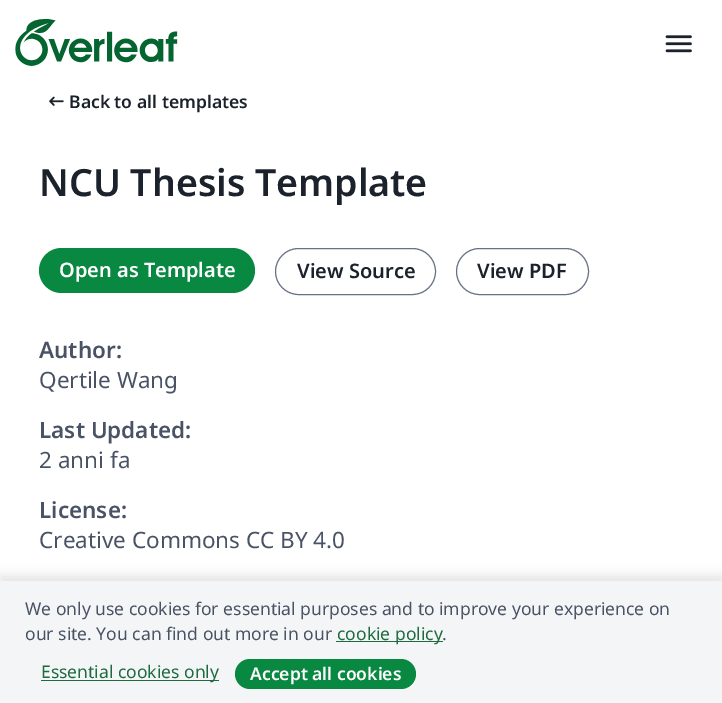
%!PS-Adobe-3.0
%%BoundingBox: 0 0 722 703
%%LanguageLevel: 3
%%Pages: 1
%%EndComments
%%BeginProlog
/setalpha { dup .setfillconstantalpha .setstrokeconstantalpha } def
/rrect { 5 dict begin { /r /h /w /y /x } { exch def } forall
  x r add y moveto x w add y 2 copy h add r arct x w add y h add x 1 index r arct
  x y h add x y r arct x y 2 copy exch w add exch r arct closepath end } def
/softshadow { 12 dict begin { /a /b /q /h /w /y /x } { exch def } forall gsave /was 0 def
  9 -2 -9 { dup b mul 4 div /e exch def 1 sub .425 mul 2.718 exch exp 1 add a .99 .min exch div /now exch def
    1 1 now sub 1 was sub div sub setalpha /was now def
    w h .min e 2 mul add 0 gt { x e sub y e sub w e 2 mul add h e 2 mul add
      q e add b .6 mul add w h .min 2 div e add .min 0 .max rrect fill } if } for grestore end } def
/drawimage { 5 dict begin { /h /w /y /x /name } { exch def } forall
  gsave x y translate w h scale
  w h 8 [w 0 0 h 0 0] name (r) file false 3 colorimage grestore end } def
%%EndProlog
%%BeginSetup
<< /PageSize [722 703] /PageUsesTransparency true >> setpagedevice
%%EndSetup
%%Page: 1 1
0 .pushpdf14devicefilter
0 703 translate 1 -1 scale
4 setmiterlimit
1 setgray
0 0 722 703 rectfill
(images/1.raw) 15 19 163 47 drawimage
(images/2.raw) 665 35 27 18 drawimage
(images/3.raw) 49 96 15 10 drawimage
0.035 0.533 0.259 setrgbcolor
39 248 216 45 22.5 rrect fill
0.404 0.447 0.514 setrgbcolor
275.5 248.5 160 46 23 rrect stroke
456.5 248.5 132 46 23 rrect stroke
0 setgray
0 575 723 123 0 5 0.1 softshadow
0.957 0.961 0.965 setrgbcolor
0 581 722 122 rectfill
0.118 0.42 0.255 setrgbcolor
336 641 107 1 rectfill
41 680 178 1 rectfill
0.035 0.533 0.259 setrgbcolor
235 659 181 30 15 rrect fill
/NotoSans-SemiBold [17.5 0 0 -17.5 0 0] selectfont
0.106 0.133 0.173 setrgbcolor
69 108 moveto (Back to all templates) show
/NotoSans-SemiBold [37.5 0 0 -37.5 0 0] selectfont
39 196 moveto (NCU Thesis Template) show
/NotoSans-SemiBold [20 0 0 -20 0 0] selectfont
1 setgray
59 277 moveto (Open as Template) show
0.106 0.133 0.173 setrgbcolor
297 278 moveto (View Source) show
477 278 moveto (View PDF) show
/NotoSans-SemiBold [22.5 0 0 -22.5 0 0] selectfont
0.286 0.325 0.396 setrgbcolor
39 358 moveto (Author:) show
/NotoSans-Regular [22.5 0 0 -22.5 0 0] selectfont
39 388 moveto (Qertile Wang) show
/NotoSans-SemiBold [22.5 0 0 -22.5 0 0] selectfont
39 438 moveto (Last Updated:) show
/NotoSans-Regular [22.5 0 0 -22.5 0 0] selectfont
39 468 moveto (2 anni fa) show
/NotoSans-SemiBold [22.5 0 0 -22.5 0 0] selectfont
39 518 moveto (License:) show
/NotoSans-Regular [22.5 0 0 -22.5 0 0] selectfont
39 548 moveto (Creative Commons CC BY 4.0) show
/NotoSans-Regular [17.5 0 0 -17.5 0 0] selectfont
25 615 moveto (We only use cookies for essential purposes and to improve your experience on) show
25 640 moveto (our site. You can find out more in our) show
0.118 0.42 0.255 setrgbcolor
337 640 moveto (cookie policy) show
0.286 0.325 0.396 setrgbcolor
442 640 moveto (.) show
0.118 0.42 0.255 setrgbcolor
41 678 moveto (Essential cookies only) show
/NotoSans-SemiBold [17.5 0 0 -17.5 0 0] selectfont
1 setgray
250 680 moveto (Accept all cookies) show
.poppdf14devicefilter showpage
%%EOF
